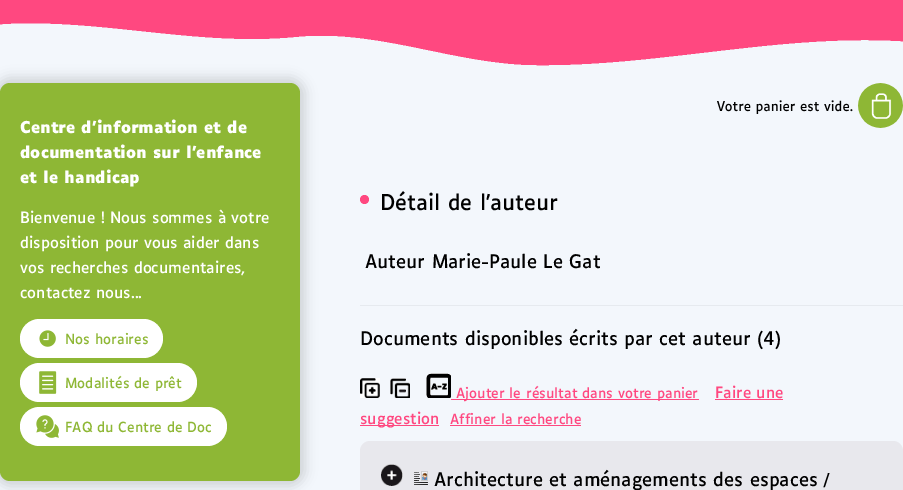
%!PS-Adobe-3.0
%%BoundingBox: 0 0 903 490
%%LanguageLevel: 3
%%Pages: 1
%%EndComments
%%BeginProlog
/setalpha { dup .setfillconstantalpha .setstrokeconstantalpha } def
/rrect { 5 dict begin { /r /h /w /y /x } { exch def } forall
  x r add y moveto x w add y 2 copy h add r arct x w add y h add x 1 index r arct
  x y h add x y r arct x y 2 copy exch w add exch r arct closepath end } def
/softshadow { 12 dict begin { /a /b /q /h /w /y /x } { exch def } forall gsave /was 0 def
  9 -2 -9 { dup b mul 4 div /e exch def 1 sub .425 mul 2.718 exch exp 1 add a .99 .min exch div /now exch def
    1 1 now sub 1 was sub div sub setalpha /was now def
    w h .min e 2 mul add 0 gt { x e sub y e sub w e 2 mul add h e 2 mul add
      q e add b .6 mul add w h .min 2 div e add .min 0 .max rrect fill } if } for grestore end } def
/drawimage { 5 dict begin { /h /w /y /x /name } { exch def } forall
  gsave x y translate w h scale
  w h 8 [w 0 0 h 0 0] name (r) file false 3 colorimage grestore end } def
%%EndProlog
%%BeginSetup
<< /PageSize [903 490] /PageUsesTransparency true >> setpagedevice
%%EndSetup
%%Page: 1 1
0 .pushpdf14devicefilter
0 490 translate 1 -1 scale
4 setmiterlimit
0.953 0.969 0.988 setrgbcolor
0 0 903 490 rectfill
(images/1.raw) 0 0 903 66 drawimage
0 setgray
-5 78 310 408 15 6 0.15 softshadow
0.557 0.718 0.208 setrgbcolor
0 83 300 398 10 rrect fill
1 setgray
20 319 143 39 19.5 rrect fill
(images/2.raw) 39 330 17 17 drawimage
20 363 177 39 19.5 rrect fill
(images/3.raw) 39 371 18 23 drawimage
20 407 207 39 19.5 rrect fill
(images/4.raw) 36 415 23 23 drawimage
(images/5.raw) 717 83 186 45 drawimage
1 0.282 0.502 setrgbcolor
newpath 364.5 199.5 4.5 0 360 arc closepath fill
0.902 0.918 0.937 setrgbcolor
360 305 543 1 rectfill
(images/6.raw) 360 378 20 20 drawimage
(images/7.raw) 390 378 20 20 drawimage
(images/8.raw) 426 373 25 25 drawimage
1 0.282 0.502 setrgbcolor
715 399 68 1 rectfill
451 399 248 1 rectfill
360 425 79 1 rectfill
450 425 131 1 rectfill
0.91 0.91 0.929 setrgbcolor
360 441 543 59 10 rrect fill
(images/9.raw) 381 464 22 22 drawimage
(images/10.raw) 414 471 14 14 drawimage
/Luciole-Bold [15.75 0 0 -15.75 0 0] selectfont
1 setgray
20 133 moveto (Centre d'information et de) show
20 158 moveto (documentation sur l'enfance) show
20 183 moveto (et le handicap) show
/Luciole-Regular [15 0 0 -15 0 0] selectfont
20 223 moveto (Bienvenue ! Nous sommes à votre) show
20 248 moveto (disposition pour vous aider dans) show
20 273 moveto (vos recherches documentaires,) show
20 298 moveto (contactez nous...) show
/Luciole-Regular [13.5 0 0 -13.5 0 0] selectfont
0.557 0.718 0.208 setrgbcolor
65 344 moveto (Nos horaires) show
65 388 moveto (Modalités de prêt) show
65 432 moveto (FAQ du Centre de Doc) show
/Luciole-Regular [21 0 0 -21 0 0] selectfont
0 setgray
380 210 moveto (Détail de l'auteur) show
/Luciole-Regular [18 0 0 -18 0 0] selectfont
365 268 moveto (Auteur Marie-Paule Le Gat) show
360 345 moveto (Documents disponibles écrits par cet auteur \(4\)) show
/Luciole-Regular [13.5 0 0 -13.5 0 0] selectfont
1 0.282 0.502 setrgbcolor
456 398 moveto (Ajouter le résultat dans votre panier) show
/Luciole-Regular [15 0 0 -15 0 0] selectfont
715 398 moveto (Faire une) show
360 424 moveto (suggestion) show
/Luciole-Regular [13.5 0 0 -13.5 0 0] selectfont
450 424 moveto (Affiner la recherche) show
/Luciole-Regular [18 0 0 -18 0 0] selectfont
0 setgray
434 486 moveto (Architecture et aménagements des espaces) show
/Luciole-Regular [15 0 0 -15 0 0] selectfont
823 486 moveto (/) show
.poppdf14devicefilter showpage
%%EOF
